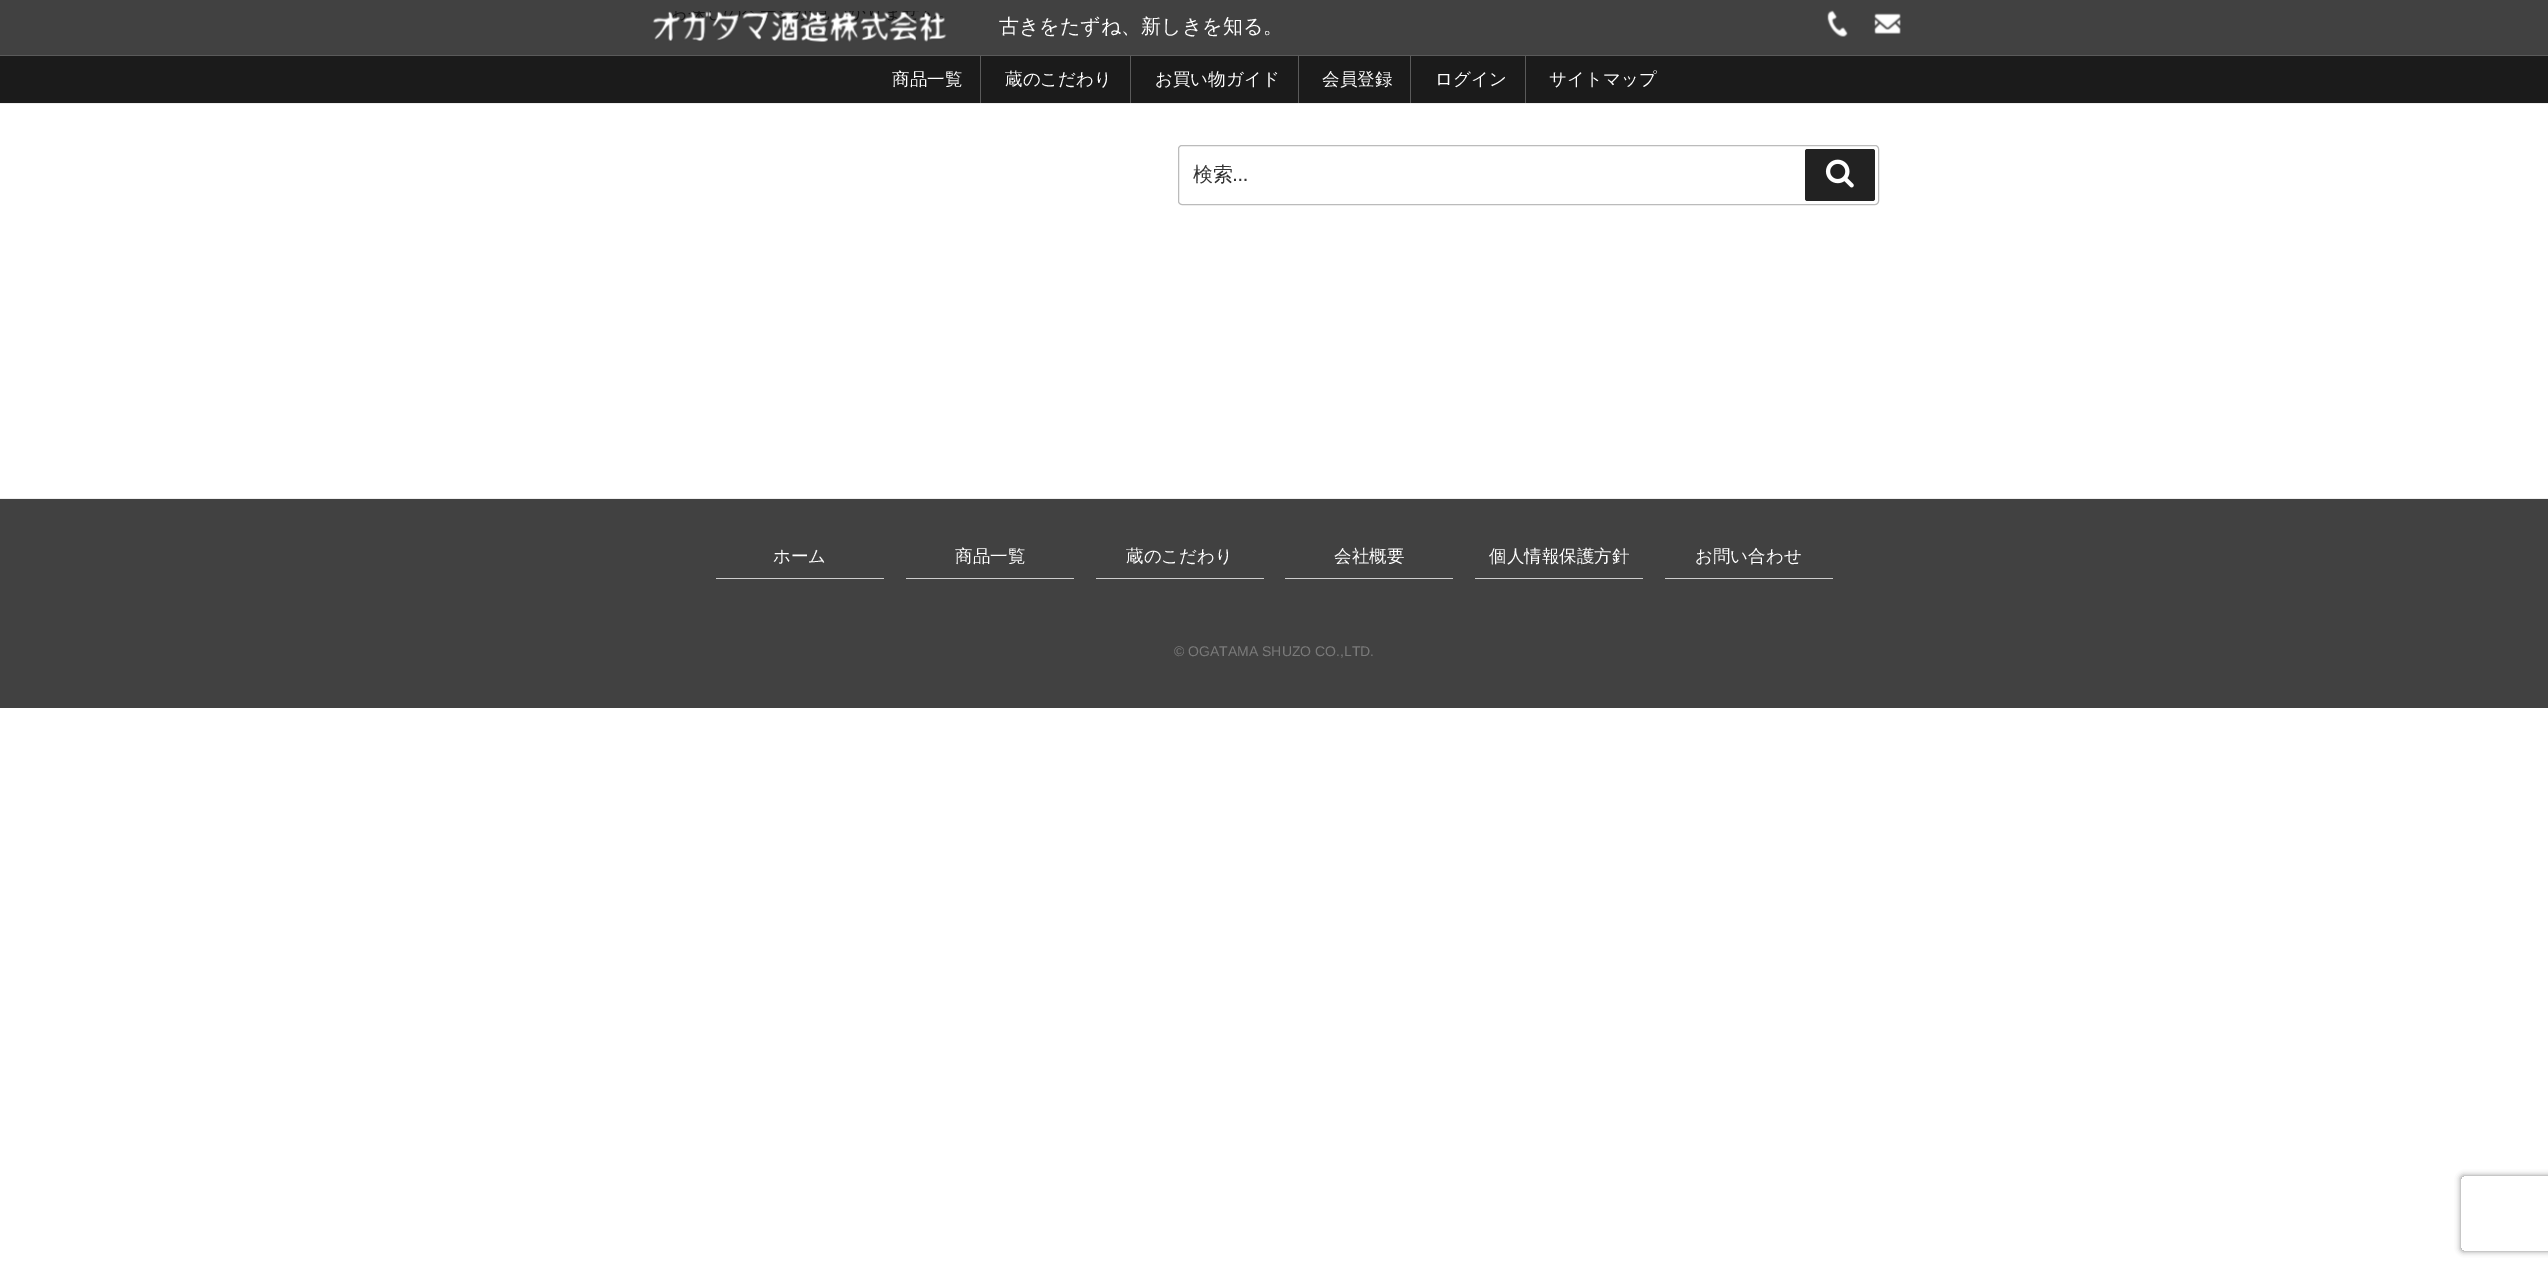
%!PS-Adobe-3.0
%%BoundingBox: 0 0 2548 1268
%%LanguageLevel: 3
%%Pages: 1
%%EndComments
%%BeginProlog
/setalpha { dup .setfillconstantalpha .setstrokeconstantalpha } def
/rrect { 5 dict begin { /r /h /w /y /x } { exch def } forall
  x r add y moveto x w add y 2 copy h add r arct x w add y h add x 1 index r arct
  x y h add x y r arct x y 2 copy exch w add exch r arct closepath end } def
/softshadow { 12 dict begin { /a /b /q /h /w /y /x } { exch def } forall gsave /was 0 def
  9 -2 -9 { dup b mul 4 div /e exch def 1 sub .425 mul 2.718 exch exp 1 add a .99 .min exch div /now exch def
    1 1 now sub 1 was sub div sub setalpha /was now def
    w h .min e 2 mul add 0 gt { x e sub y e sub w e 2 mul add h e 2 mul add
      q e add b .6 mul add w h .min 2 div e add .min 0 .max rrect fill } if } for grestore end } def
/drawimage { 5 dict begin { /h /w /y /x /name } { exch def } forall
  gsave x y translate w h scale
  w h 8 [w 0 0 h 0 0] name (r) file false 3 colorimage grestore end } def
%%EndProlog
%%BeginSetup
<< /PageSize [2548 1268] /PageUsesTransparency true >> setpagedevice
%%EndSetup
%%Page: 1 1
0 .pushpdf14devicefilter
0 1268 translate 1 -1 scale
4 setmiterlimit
1 setgray
0 0 2548 1268 rectfill
0.8 setalpha
0.067 setgray
0 0 2548 103 rectfill
1 setalpha
(images/1.raw) 652 11 295 31 drawimage
(images/2.raw) 1827 10 21 27 drawimage
(images/3.raw) 1874 13 27 21 drawimage
0.8 setalpha
0 56 2548 47 rectfill
1 setalpha
0.353 setgray
0 55 2548 1 rectfill
0.933 setgray
0 103 2548 1 rectfill
0.353 setgray
980 56 1 47 rectfill
1130 56 1 47 rectfill
1298 56 1 47 rectfill
1410 56 1 47 rectfill
1525 56 1 47 rectfill
0.733 setgray
1178.5 145.5 700 59 3.5 rrect stroke
0.133 setgray
1805 149 70 52 2.5 rrect fill
(images/4.raw) 1825 159 29 29 drawimage
0.255 setgray
0 499 2548 209 rectfill
0.933 setgray
0 498 2548 1 rectfill
0.804 setgray
716 578 168 1 rectfill
906 578 168 1 rectfill
1096 578 168 1 rectfill
1285 578 168 1 rectfill
1475 578 168 1 rectfill
1665 578 168 1 rectfill
gsave
newpath 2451 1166 moveto 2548 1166 lineto 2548 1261 lineto 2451 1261 lineto closepath 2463.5 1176 moveto 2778.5 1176 lineto 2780 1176 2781 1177 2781 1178.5 curveto 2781 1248.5 lineto 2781 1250 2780 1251 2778.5 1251 curveto 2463.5 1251 lineto 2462 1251 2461 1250 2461 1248.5 curveto 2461 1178.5 lineto 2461 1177 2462 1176 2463.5 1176 curveto closepath eoclip newpath
0.502 setgray
2461 1176 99 75 2.5 3 1 softshadow
grestore
/WenQuanYiZenHei-Medium [20 0 0 -20 0 0] selectfont
1 setgray
999 33 moveto (古きをたずね、新しきを知る。) show
/WenQuanYiZenHei-Medium [17.5 0 0 -17.5 0 0] selectfont
892 85 moveto (商品一覧) show
1005 85 moveto (蔵のこだわり) show
1155 85 moveto (お買い物ガイド) show
1322 85 moveto (会員登録) show
1435 85 moveto (ログイン) show
1549 85 moveto (サイトマップ) show
/WenQuanYiZenHei-Medium [20 0 0 -20 0 0] selectfont
0.2 setgray
1193 181 moveto (検索) show
/LibreFranklin-Regular [20 0 0 -20 0 0] selectfont
1233 181 moveto (…) show
/WenQuanYiZenHei-Medium [17.5 0 0 -17.5 0 0] selectfont
1 setgray
773 562 moveto (ホーム) show
955 562 moveto (商品一覧) show
1126 562 moveto (蔵のこだわり) show
1334 562 moveto (会社概要) show
1489 562 moveto (個人情報保護方針) show
1695 562 moveto (お問い合わせ) show
/LiberationSans-Regular [14 0 0 -14 0 0] selectfont
0.478 setgray
1174 656 moveto (© OGATAMA SHUZO CO.,LTD.) show
.poppdf14devicefilter showpage
%%EOF
